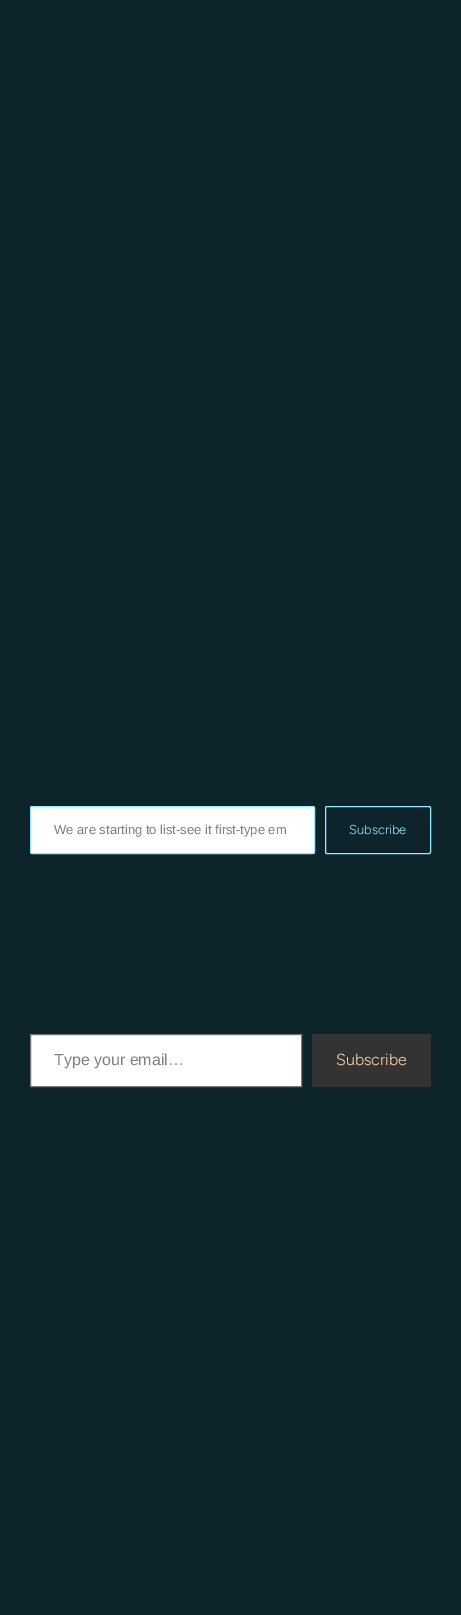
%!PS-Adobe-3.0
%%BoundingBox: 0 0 461 1615
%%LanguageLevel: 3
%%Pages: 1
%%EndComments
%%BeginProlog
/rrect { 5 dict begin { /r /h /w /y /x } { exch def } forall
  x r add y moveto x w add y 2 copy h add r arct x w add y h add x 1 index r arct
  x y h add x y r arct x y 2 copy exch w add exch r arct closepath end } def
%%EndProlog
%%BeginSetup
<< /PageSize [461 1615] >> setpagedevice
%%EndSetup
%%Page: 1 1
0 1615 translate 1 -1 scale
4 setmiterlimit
0.047 0.141 0.165 setrgbcolor
0 0 461 1615 rectfill
1 setgray
30.5 806.5 284 47 1.5 rrect gsave fill grestore
0.6 0.925 1 setrgbcolor
stroke
325.5 806.5 105 47 1.5 rrect stroke
1 setgray
newpath 30.5 1034.5 moveto 301.5 1034.5 lineto 301.5 1086.5 lineto 30.5 1086.5 lineto closepath gsave fill grestore
0.463 setgray
stroke
0.2 setgray
312 1034 119 53 rectfill
/LiberationSans-Regular [13 0 0 -13 0 0] selectfont
0.502 setgray
54 834 moveto (We are starting to list-see it first-type em) show
/Figtree-Light [13 0 0 -13 0 0] selectfont
0.6 0.925 1 setrgbcolor
349 834 moveto (Subscribe) show
/LiberationSans-Regular [16 0 0 -16 0 0] selectfont
0.502 setgray
54 1065 moveto (Type your email…) show
/Figtree-Light [16 0 0 -16 0 0] selectfont
1 0.839 0.655 setrgbcolor
336 1065 moveto (Subscribe) show
showpage
%%EOF
